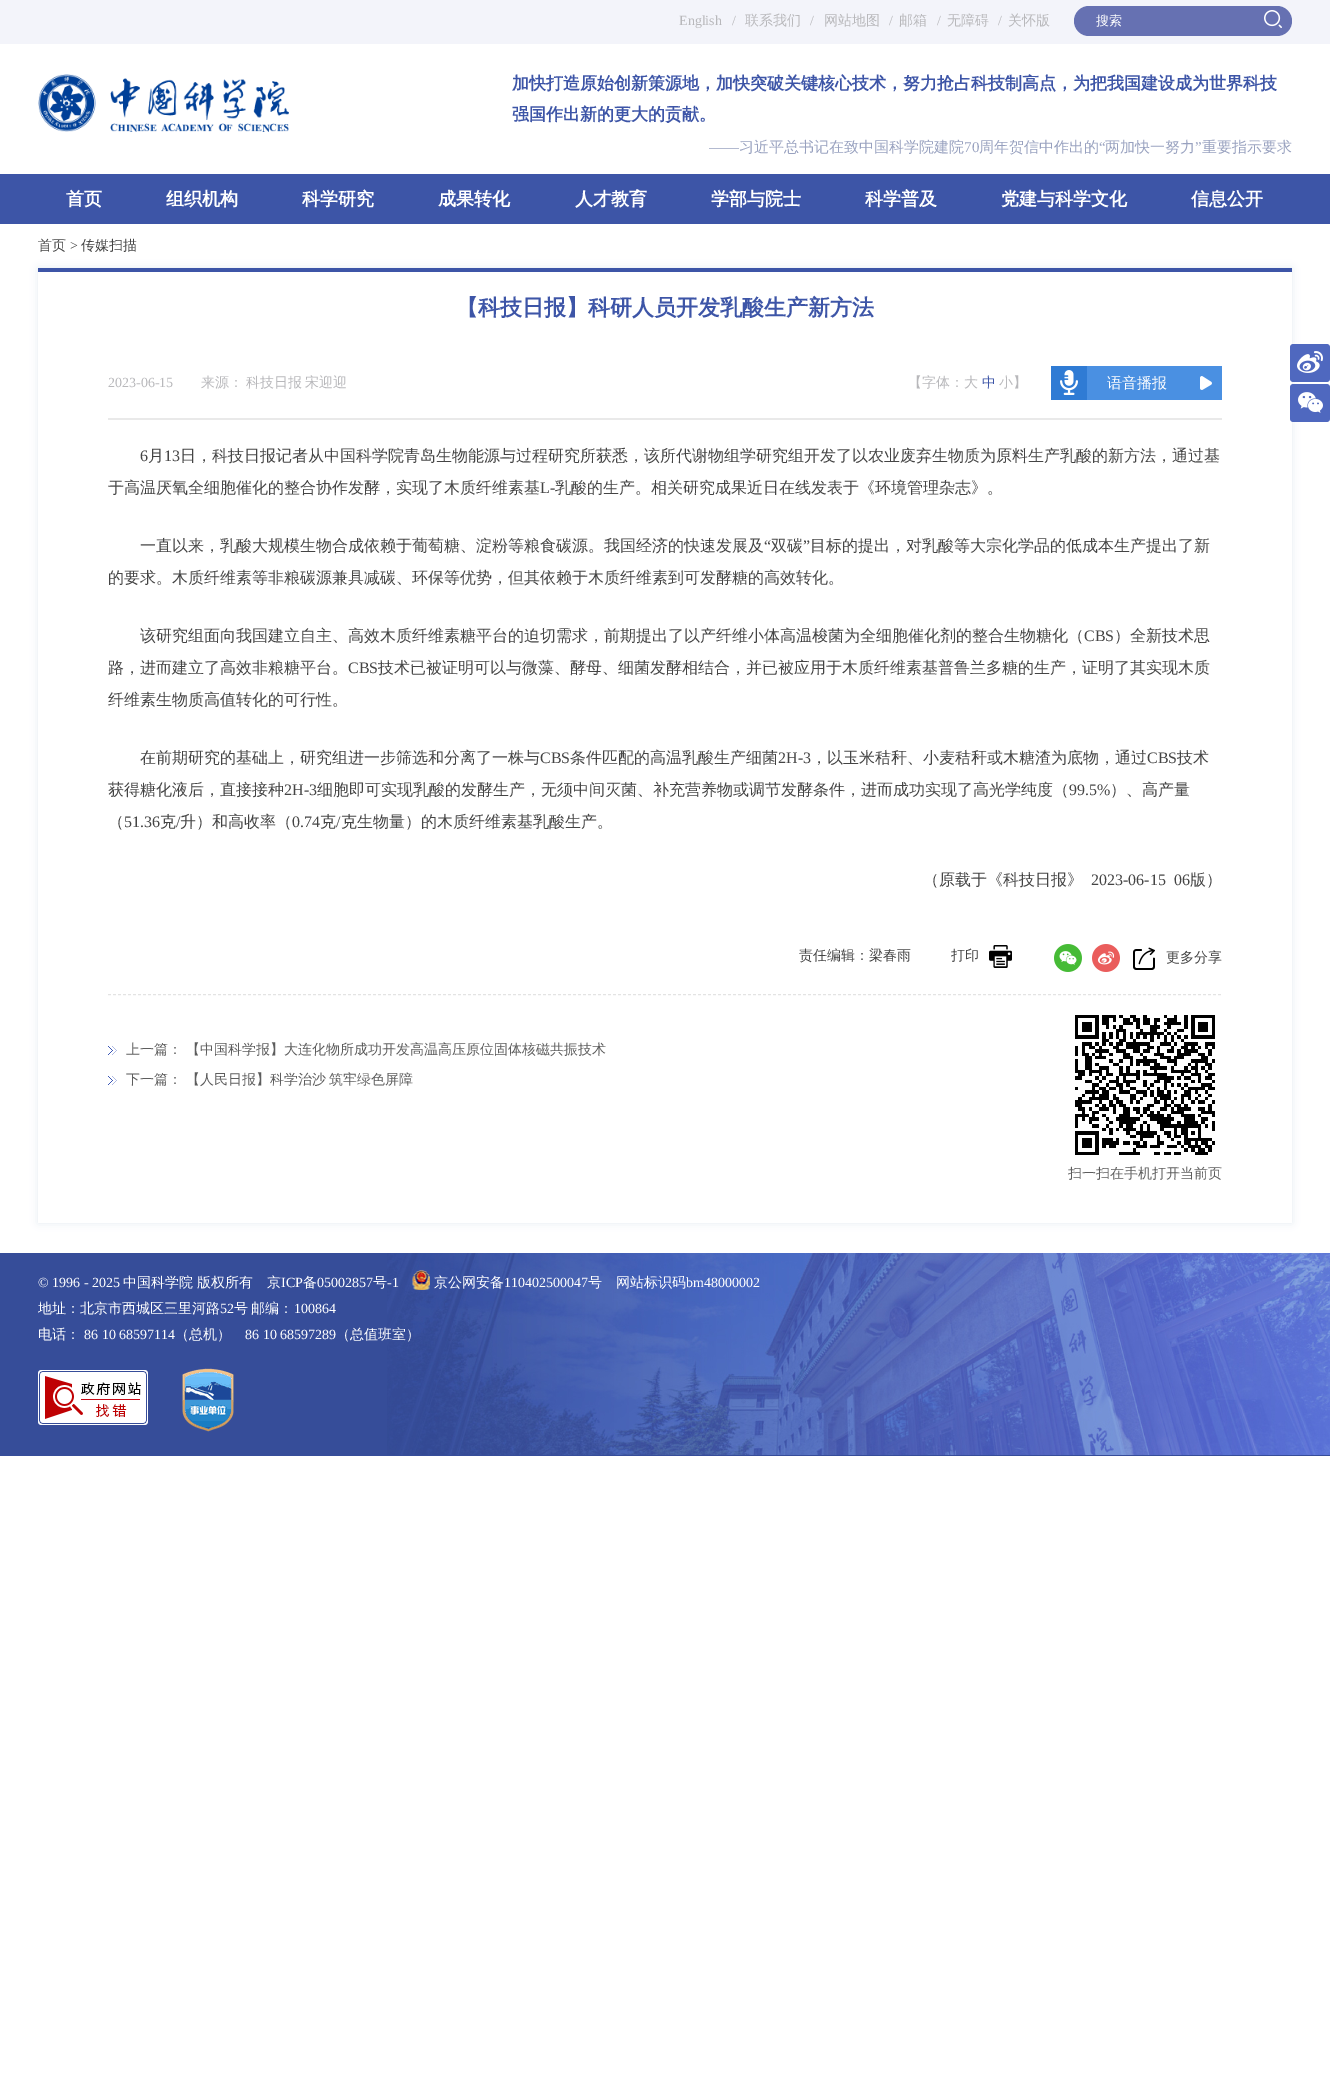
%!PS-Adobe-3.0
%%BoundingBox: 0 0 1330 2086
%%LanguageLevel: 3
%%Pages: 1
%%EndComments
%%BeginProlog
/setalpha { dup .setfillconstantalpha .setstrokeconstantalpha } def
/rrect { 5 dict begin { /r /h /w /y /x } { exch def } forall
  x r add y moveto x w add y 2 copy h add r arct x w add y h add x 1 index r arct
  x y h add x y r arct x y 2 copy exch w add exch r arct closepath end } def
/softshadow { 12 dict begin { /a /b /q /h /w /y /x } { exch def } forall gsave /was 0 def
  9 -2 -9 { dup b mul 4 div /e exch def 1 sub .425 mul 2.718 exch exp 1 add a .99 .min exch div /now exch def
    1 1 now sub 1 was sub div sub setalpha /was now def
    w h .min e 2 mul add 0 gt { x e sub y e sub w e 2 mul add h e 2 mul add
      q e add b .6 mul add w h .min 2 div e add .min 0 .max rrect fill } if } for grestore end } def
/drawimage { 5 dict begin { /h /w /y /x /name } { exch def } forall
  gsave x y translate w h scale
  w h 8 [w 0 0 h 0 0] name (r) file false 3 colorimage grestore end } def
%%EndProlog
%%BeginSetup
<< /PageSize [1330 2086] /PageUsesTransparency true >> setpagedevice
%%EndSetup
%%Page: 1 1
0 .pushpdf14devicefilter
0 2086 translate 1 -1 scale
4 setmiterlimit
1 setgray
0 0 1330 2086 rectfill
0.953 0.957 0.98 setrgbcolor
0 0 1330 44 rectfill
0.4 0.443 0.698 setrgbcolor
1074 6 218 30 15 rrect fill
(images/1.raw) 1264 10 18 18 drawimage
(images/2.raw) 38 74 251 58 drawimage
0.239 0.333 0.655 setrgbcolor
0 174 1330 50 rectfill
gsave
newpath 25 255 moveto 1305 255 lineto 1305 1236 lineto 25 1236 lineto closepath 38 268 moveto 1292 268 lineto 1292 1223 lineto 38 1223 lineto closepath eoclip newpath
0.902 0.925 0.949 setrgbcolor
38 268 1254 955 0 4 1 softshadow
grestore
38 268 1254 4 rectfill
0.914 setgray
108 418 1114 2 rectfill
0.29 0.565 0.886 setrgbcolor
1087 366 135 34 rectfill
0.184 0.482 0.831 setrgbcolor
1051 366 36 34 rectfill
(images/3.raw) 1060 370 18 25 drawimage
(images/4.raw) 1200 376 12 14 drawimage
0.89 setgray
[3 2] 0 setdash
newpath 108 994.5 moveto 1222 994.5 lineto stroke
(images/5.raw) 989 945 23 23 drawimage
(images/6.raw) 1054 944 28 28 drawimage
(images/7.raw) 1092 944 28 28 drawimage
(images/8.raw) 1133 947 22 23 drawimage
(images/9.raw) 108 1046 9 9 drawimage
(images/9.raw) 108 1076 9 9 drawimage
(images/10.raw) 1075 1015 140 140 drawimage
(images/11.raw) 1290 344 40 38 drawimage
(images/12.raw) 1290 384 40 38 drawimage
0.212 0.302 0.6 setrgbcolor
0 1253 1330 203 rectfill
(images/13.raw) 387 1253 943 202 drawimage
(images/14.raw) 412 1270 18 20 drawimage
(images/15.raw) 38 1370 110 55 drawimage
(images/16.raw) 182 1368 52 64 drawimage
/LiberationSerif-Regular [14 0 0 -14 0 0] selectfont
0.722 0.722 0.733 setrgbcolor
679 25 moveto (English) show
732 25 moveto (/) show
/WenQuanYiZenHei-Medium [14 0 0 -14 0 0] selectfont
745 25 moveto (联系我们) show
/LiberationSerif-Regular [14 0 0 -14 0 0] selectfont
810 25 moveto (/) show
/WenQuanYiZenHei-Medium [14 0 0 -14 0 0] selectfont
824 25 moveto (网站地图) show
/LiberationSerif-Regular [14 0 0 -14 0 0] selectfont
889 25 moveto (/) show
/WenQuanYiZenHei-Medium [14 0 0 -14 0 0] selectfont
899 25 moveto (邮箱) show
/LiberationSerif-Regular [14 0 0 -14 0 0] selectfont
937 25 moveto (/) show
/WenQuanYiZenHei-Medium [14 0 0 -14 0 0] selectfont
947 25 moveto (无障碍) show
/LiberationSerif-Regular [14 0 0 -14 0 0] selectfont
998 25 moveto (/) show
/WenQuanYiZenHei-Medium [14 0 0 -14 0 0] selectfont
1008 25 moveto (关怀版) show
/WenQuanYiZenHei-Medium [13 0 0 -13 0 0] selectfont
1 setgray
1096 25 moveto (搜索) show
/WenQuanYiZenHei-Bold [17 0 0 -17 0 0] selectfont
0.239 0.333 0.655 setrgbcolor
512 89 moveto (加快打造原始创新策源地，加快突破关键核心技术，努力抢占科技制高点，为把我国建设成为世界科技) show
512 120 moveto (强国作出新的更大的贡献。) show
/WenQuanYiZenHei-Medium [15 0 0 -15 0 0] selectfont
0.596 0.631 0.749 setrgbcolor
739 152 moveto (习近平总书记在致中国科学院建院) show
/LiberationSerif-Regular [15 0 0 -15 0 0] selectfont
964 152 moveto (70) show
/WenQuanYiZenHei-Medium [15 0 0 -15 0 0] selectfont
979 152 moveto (周年贺信中作出的) show
/LiberationSerif-Regular [15 0 0 -15 0 0] selectfont
1099 152 moveto (“) show
/WenQuanYiZenHei-Medium [15 0 0 -15 0 0] selectfont
1105 152 moveto (两加快一努力) show
/LiberationSerif-Regular [15 0 0 -15 0 0] selectfont
1195 152 moveto (”) show
/WenQuanYiZenHei-Medium [15 0 0 -15 0 0] selectfont
1202 152 moveto (重要指示要求) show
/LiberationSerif-Regular [15 0 0 -15 0 0] selectfont
709 152 moveto (——) show
/WenQuanYiZenHei-Bold [18 0 0 -18 0 0] selectfont
1 setgray
66 205 moveto (首页) show
166 205 moveto (组织机构) show
302 205 moveto (科学研究) show
438 205 moveto (成果转化) show
575 205 moveto (人才教育) show
711 205 moveto (学部与院士) show
865 205 moveto (科学普及) show
1001 205 moveto (党建与科学文化) show
1191 205 moveto (信息公开) show
/WenQuanYiZenHei-Medium [14 0 0 -14 0 0] selectfont
0.267 setgray
38 250 moveto (首页) show
/LiberationSerif-Regular [14 0 0 -14 0 0] selectfont
70 250 moveto (>) show
/WenQuanYiZenHei-Medium [14 0 0 -14 0 0] selectfont
81 250 moveto (传媒扫描) show
/WenQuanYiZenHei-Bold [22 0 0 -22 0 0] selectfont
0.239 0.333 0.655 setrgbcolor
456 315 moveto (【科技日报】科研人员开发乳酸生产新方法) show
/LiberationSerif-Regular [14 0 0 -14 0 0] selectfont
0.722 0.722 0.733 setrgbcolor
108 387 moveto (2023-06-15) show
/WenQuanYiZenHei-Medium [14 0 0 -14 0 0] selectfont
201 387 moveto (来源：) show
246 387 moveto -1 0 32 (科技日报 宋迎迎) widthshow
908 387 moveto (【字体：大) show
0.239 0.333 0.655 setrgbcolor
982 387 moveto (中) show
0.722 0.722 0.733 setrgbcolor
999 387 moveto (小】) show
/WenQuanYiZenHei-Medium [15 0 0 -15 0 0] selectfont
1 setgray
1107 388 moveto (语音播报) show
/LiberationSerif-Regular [16 0 0 -16 0 0] selectfont
0.267 setgray
140 461 moveto (6) show
/WenQuanYiZenHei-Medium [16 0 0 -16 0 0] selectfont
148 461 moveto (月) show
/LiberationSerif-Regular [16 0 0 -16 0 0] selectfont
164 461 moveto (13) show
/WenQuanYiZenHei-Medium [16 0 0 -16 0 0] selectfont
180 461 moveto (日，科技日报记者从中国科学院青岛生物能源与过程研究所获悉，该所代谢物组学研究组开发了以农业废弃生物质为原料生产乳酸的新方法，通过基) show
108 493 moveto (于高温厌氧全细胞催化的整合协作发酵，实现了木质纤维素基) show
/LiberationSerif-Regular [16 0 0 -16 0 0] selectfont
540 493 moveto (L-) show
/WenQuanYiZenHei-Medium [16 0 0 -16 0 0] selectfont
555 493 moveto (乳酸的生产。相关研究成果近日在线发表于《环境管理杂志》。) show
140 551 moveto (一直以来，乳酸大规模生物合成依赖于葡萄糖、淀粉等粮食碳源。我国经济的快速发展及) show
/LiberationSerif-Regular [16 0 0 -16 0 0] selectfont
764 551 moveto (“) show
/WenQuanYiZenHei-Medium [16 0 0 -16 0 0] selectfont
771 551 moveto (双碳) show
/LiberationSerif-Regular [16 0 0 -16 0 0] selectfont
803 551 moveto (”) show
/WenQuanYiZenHei-Medium [16 0 0 -16 0 0] selectfont
810 551 moveto (目标的提出，对乳酸等大宗化学品的低成本生产提出了新) show
108 583 moveto (的要求。木质纤维素等非粮碳源兼具减碳、环保等优势，但其依赖于木质纤维素到可发酵糖的高效转化。) show
140 641 moveto (该研究组面向我国建立自主、高效木质纤维素糖平台的迫切需求，前期提出了以产纤维小体高温梭菌为全细胞催化剂的整合生物糖化（) show
/LiberationSerif-Regular [16 0 0 -16 0 0] selectfont
1084 641 moveto (CBS) show
/WenQuanYiZenHei-Medium [16 0 0 -16 0 0] selectfont
1114 641 moveto (）全新技术思) show
108 673 moveto (路，进而建立了高效非粮糖平台。) show
/LiberationSerif-Regular [16 0 0 -16 0 0] selectfont
348 673 moveto (CBS) show
/WenQuanYiZenHei-Medium [16 0 0 -16 0 0] selectfont
378 673 moveto (技术已被证明可以与微藻、酵母、细菌发酵相结合，并已被应用于木质纤维素基普鲁兰多糖的生产，证明了其实现木质) show
108 705 moveto (纤维素生物质高值转化的可行性。) show
140 763 moveto (在前期研究的基础上，研究组进一步筛选和分离了一株与) show
/LiberationSerif-Regular [16 0 0 -16 0 0] selectfont
540 763 moveto (CBS) show
/WenQuanYiZenHei-Medium [16 0 0 -16 0 0] selectfont
570 763 moveto (条件匹配的高温乳酸生产细菌) show
/LiberationSerif-Regular [16 0 0 -16 0 0] selectfont
778 763 moveto (2H-3) show
/WenQuanYiZenHei-Medium [16 0 0 -16 0 0] selectfont
811 763 moveto (，以玉米秸秆、小麦秸秆或木糖渣为底物，通过) show
/LiberationSerif-Regular [16 0 0 -16 0 0] selectfont
1147 763 moveto (CBS) show
/WenQuanYiZenHei-Medium [16 0 0 -16 0 0] selectfont
1177 763 moveto (技术) show
108 795 moveto (获得糖化液后，直接接种) show
/LiberationSerif-Regular [16 0 0 -16 0 0] selectfont
284 795 moveto (2H-3) show
/WenQuanYiZenHei-Medium [16 0 0 -16 0 0] selectfont
317 795 moveto (细胞即可实现乳酸的发酵生产，无须中间灭菌、补充营养物或调节发酵条件，进而成功实现了高光学纯度（) show
/LiberationSerif-Regular [16 0 0 -16 0 0] selectfont
1069 795 moveto (99.5%) show
/WenQuanYiZenHei-Medium [16 0 0 -16 0 0] selectfont
1110 795 moveto (）、高产量) show
108 827 moveto (（) show
/LiberationSerif-Regular [16 0 0 -16 0 0] selectfont
124 827 moveto (51.36) show
/WenQuanYiZenHei-Medium [16 0 0 -16 0 0] selectfont
160 827 moveto (克) show
/LiberationSerif-Regular [16 0 0 -16 0 0] selectfont
176 827 moveto (/) show
/WenQuanYiZenHei-Medium [16 0 0 -16 0 0] selectfont
180 827 moveto (升）和高收率（) show
/LiberationSerif-Regular [16 0 0 -16 0 0] selectfont
292 827 moveto (0.74) show
/WenQuanYiZenHei-Medium [16 0 0 -16 0 0] selectfont
320 827 moveto (克) show
/LiberationSerif-Regular [16 0 0 -16 0 0] selectfont
336 827 moveto (/) show
/WenQuanYiZenHei-Medium [16 0 0 -16 0 0] selectfont
341 827 moveto (克生物量）的木质纤维素基乳酸生产。) show
923 885 moveto (（原载于《科技日报》) show
/LiberationSerif-Regular [16 0 0 -16 0 0] selectfont
1091 885 moveto (2023-06-15 06) show
/WenQuanYiZenHei-Medium [16 0 0 -16 0 0] selectfont
1190 885 moveto (版）) show
/WenQuanYiZenHei-Medium [14 0 0 -14 0 0] selectfont
799 960 moveto (责任编辑：梁春雨) show
951 960 moveto (打印) show
1166 962 moveto (更多分享) show
0.365 setgray
126 1054 moveto (上一篇：) show
186 1054 moveto (【中国科学报】大连化物所成功开发高温高压原位固体核磁共振技术) show
126 1084 moveto (下一篇：) show
186 1084 moveto -1 0 32 (【人民日报】科学治沙 筑牢绿色屏障) widthshow
1068 1178 moveto (扫一扫在手机打开当前页) show
/LiberationSerif-Regular [14 0 0 -14 0 0] selectfont
1 setgray
38 1287 moveto (© 1996 - 2025) show
/WenQuanYiZenHei-Medium [14 0 0 -14 0 0] selectfont
123 1287 moveto (中国科学院 版权所有) show
267 1287 moveto (京) show
/LiberationSerif-Regular [14 0 0 -14 0 0] selectfont
281 1287 moveto (ICP) show
/WenQuanYiZenHei-Medium [14 0 0 -14 0 0] selectfont
303 1287 moveto (备) show
/LiberationSerif-Regular [14 0 0 -14 0 0] selectfont
317 1287 moveto (05002857) show
/WenQuanYiZenHei-Medium [14 0 0 -14 0 0] selectfont
373 1287 moveto (号) show
/LiberationSerif-Regular [14 0 0 -14 0 0] selectfont
387 1287 moveto (-1) show
/WenQuanYiZenHei-Medium [14 0 0 -14 0 0] selectfont
434 1287 moveto (京公网安备) show
/LiberationSerif-Regular [14 0 0 -14 0 0] selectfont
504 1287 moveto (110402500047) show
/WenQuanYiZenHei-Medium [14 0 0 -14 0 0] selectfont
588 1287 moveto (号　网站标识码) show
/LiberationSerif-Regular [14 0 0 -14 0 0] selectfont
686 1287 moveto (bm48000002) show
/WenQuanYiZenHei-Medium [14 0 0 -14 0 0] selectfont
38 1313 moveto (地址：北京市西城区三里河路) show
/LiberationSerif-Regular [14 0 0 -14 0 0] selectfont
220 1313 moveto (52) show
/WenQuanYiZenHei-Medium [14 0 0 -14 0 0] selectfont
234 1313 moveto -1 0 32 (号 邮编：) widthshow
/LiberationSerif-Regular [14 0 0 -14 0 0] selectfont
294 1313 moveto (100864) show
/WenQuanYiZenHei-Medium [14 0 0 -14 0 0] selectfont
38 1339 moveto (电话：) show
/LiberationSerif-Regular [14 0 0 -14 0 0] selectfont
84 1339 moveto (86 10 68597114) show
/WenQuanYiZenHei-Medium [14 0 0 -14 0 0] selectfont
175 1339 moveto (（总机）) show
/LiberationSerif-Regular [14 0 0 -14 0 0] selectfont
245 1339 moveto (86 10 68597289) show
/WenQuanYiZenHei-Medium [14 0 0 -14 0 0] selectfont
336 1339 moveto (（总值班室）) show
.poppdf14devicefilter showpage
%%EOF
